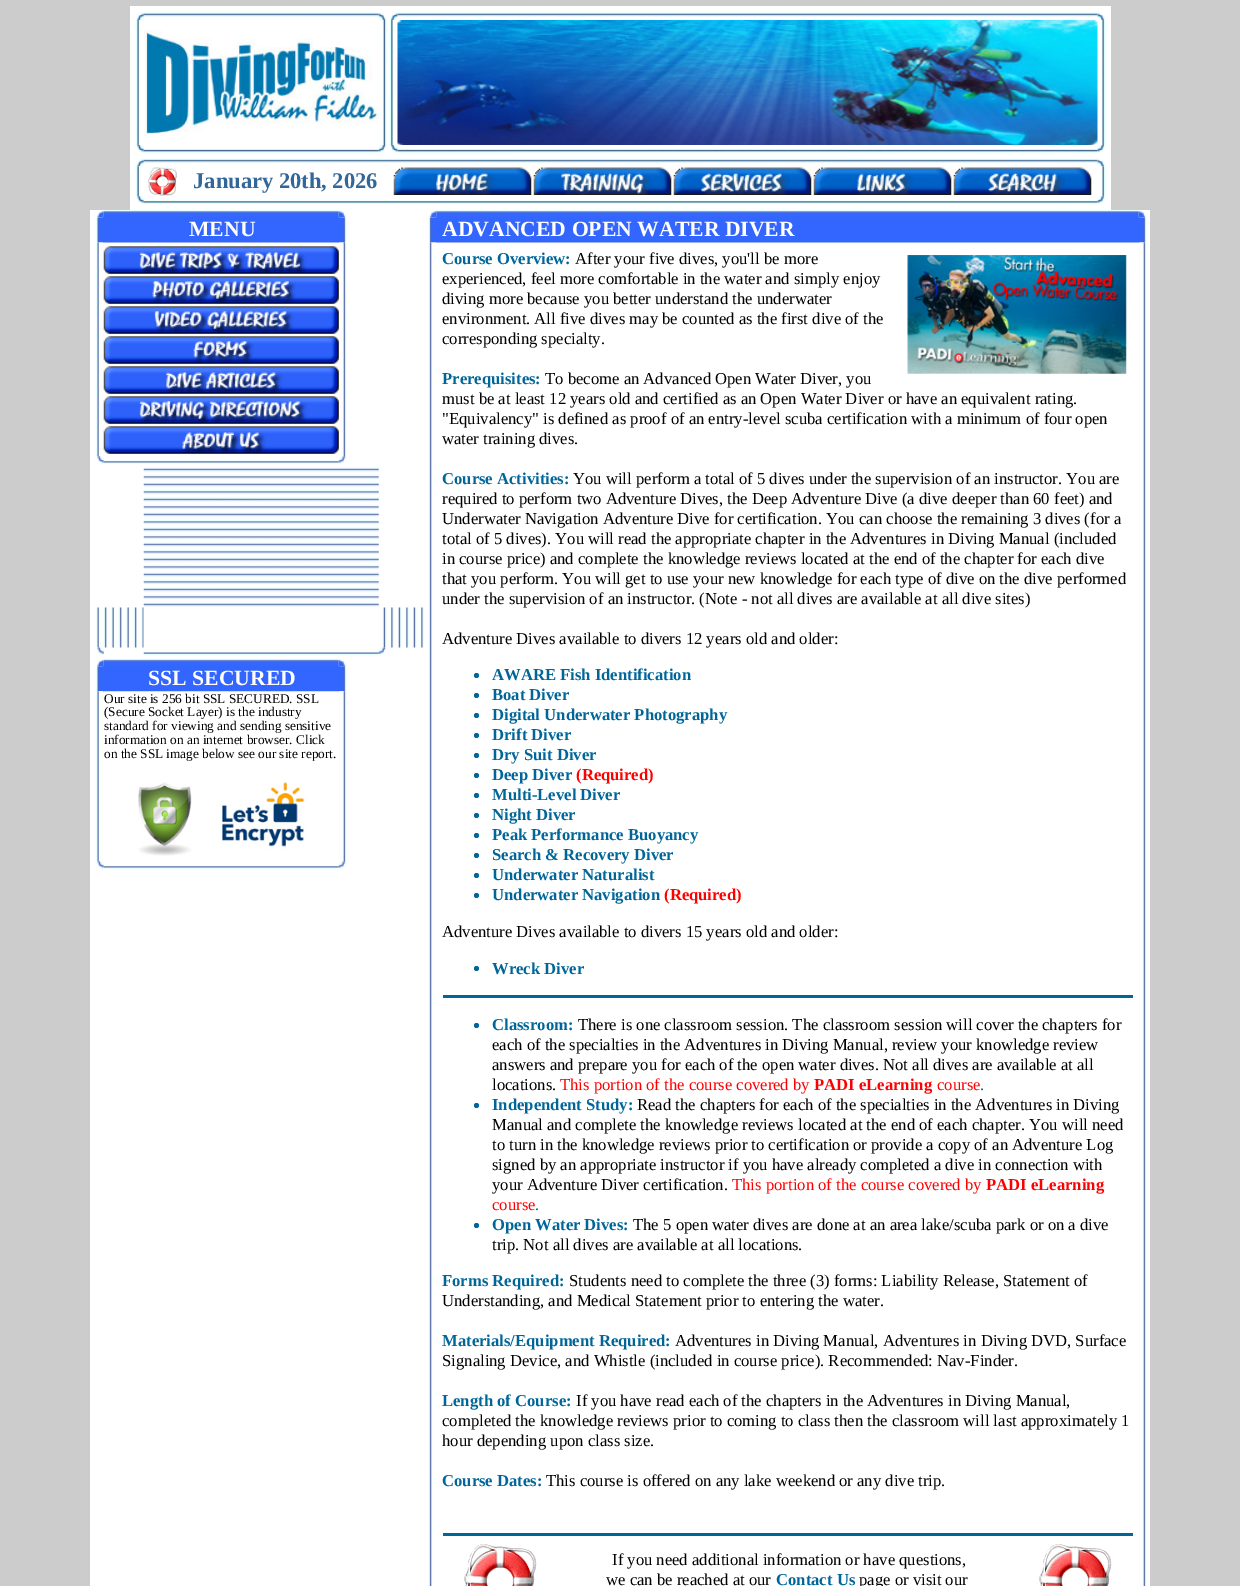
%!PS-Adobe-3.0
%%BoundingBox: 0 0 1240 1586
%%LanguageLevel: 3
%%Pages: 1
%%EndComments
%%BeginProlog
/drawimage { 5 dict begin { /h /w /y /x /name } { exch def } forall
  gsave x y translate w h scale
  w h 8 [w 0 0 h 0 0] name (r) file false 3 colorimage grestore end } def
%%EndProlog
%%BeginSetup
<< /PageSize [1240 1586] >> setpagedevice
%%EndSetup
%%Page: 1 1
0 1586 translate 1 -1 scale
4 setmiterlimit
0.8 setgray
0 0 1240 1586 rectfill
1 setgray
130 6 981 204 rectfill
(images/2.raw) 143 12 236 5 drawimage
(images/1.raw) 136 12 8 8 drawimage
(images/3.raw) 378 12 9 8 drawimage
(images/4.raw) 136 20 4 125 drawimage
(images/5.raw) 143 30 236 107 drawimage
(images/6.raw) 382 20 5 125 drawimage
(images/8.raw) 143 149 236 4 drawimage
(images/7.raw) 136 145 8 8 drawimage
(images/9.raw) 378 145 9 8 drawimage
(images/11.raw) 397 12 701 5 drawimage
(images/10.raw) 390 12 8 8 drawimage
(images/12.raw) 1097 12 8 8 drawimage
(images/13.raw) 390 20 4 125 drawimage
(images/14.raw) 397 20 701 125 drawimage
(images/15.raw) 1101 20 4 125 drawimage
(images/17.raw) 397 149 701 4 drawimage
(images/16.raw) 390 145 8 8 drawimage
(images/18.raw) 1097 145 8 8 drawimage
(images/20.raw) 143 158 955 5 drawimage
(images/19.raw) 136 158 8 9 drawimage
(images/21.raw) 1097 158 8 9 drawimage
(images/22.raw) 136 166 5 31 drawimage
(images/23.raw) 148 167 29 29 drawimage
(images/24.raw) 393 167 139 28 drawimage
(images/25.raw) 533 167 139 28 drawimage
(images/26.raw) 673 167 139 28 drawimage
(images/27.raw) 813 167 139 28 drawimage
(images/28.raw) 953 167 139 28 drawimage
(images/29.raw) 1101 166 4 31 drawimage
(images/31.raw) 143 200 955 4 drawimage
(images/30.raw) 136 196 8 8 drawimage
(images/32.raw) 1097 196 8 8 drawimage
90 210 1060 1376 rectfill
(images/34.raw) 103 210 236 7 drawimage
(images/36.raw) 96 217 7 26 drawimage
0.2 0.4 1 setrgbcolor
103 217 236 26 rectfill
(images/33.raw) 96 210 8 8 drawimage
(images/37.raw) 339 217 8 26 drawimage
(images/35.raw) 338 210 8 8 drawimage
(images/38.raw) 96 242 8 215 drawimage
(images/39.raw) 103 242 236 1 drawimage
(images/47.raw) 338 242 9 215 drawimage
(images/40.raw) 103 246 236 28 drawimage
(images/41.raw) 103 276 236 28 drawimage
(images/42.raw) 103 306 236 28 drawimage
(images/43.raw) 103 336 236 28 drawimage
(images/44.raw) 103 366 236 28 drawimage
(images/45.raw) 103 396 236 28 drawimage
(images/46.raw) 103 426 236 28 drawimage
(images/49.raw) 103 460 236 4 drawimage
(images/48.raw) 96 456 8 8 drawimage
(images/50.raw) 338 456 9 8 drawimage
(images/51.raw) 143 467 236 140 drawimage
(images/52.raw) 96 607 48 41 drawimage
(images/53.raw) 143 607 1 41 drawimage
(images/54.raw) 378 607 46 41 drawimage
1 setgray
378 608 1 39 rectfill
(images/55.raw) 96 647 8 8 drawimage
(images/56.raw) 143 647 236 8 drawimage
(images/57.raw) 378 647 9 8 drawimage
(images/59.raw) 103 658 236 8 drawimage
(images/61.raw) 96 666 7 26 drawimage
0.2 0.4 1 setrgbcolor
103 666 236 26 rectfill
(images/58.raw) 96 659 8 8 drawimage
(images/62.raw) 339 666 8 26 drawimage
(images/60.raw) 338 659 9 8 drawimage
(images/63.raw) 96 691 8 171 drawimage
(images/64.raw) 103 691 236 1 drawimage
(images/65.raw) 138 782 169 74 drawimage
(images/66.raw) 338 691 9 171 drawimage
(images/49.raw) 103 865 236 4 drawimage
(images/48.raw) 96 861 8 8 drawimage
(images/50.raw) 338 861 9 8 drawimage
(images/68.raw) 436 210 703 7 drawimage
(images/70.raw) 428 217 8 26 drawimage
436 217 703 26 rectfill
(images/67.raw) 429 210 8 8 drawimage
(images/37.raw) 1139 217 8 26 drawimage
(images/69.raw) 1138 210 8 8 drawimage
(images/71.raw) 428 242 9 1344 drawimage
(images/72.raw) 436 242 703 1 drawimage
(images/73.raw) 907 255 220 119 drawimage
0 0.4 0.6 setrgbcolor
newpath 476.5 675.5 2.5 0 360 arc closepath fill
newpath 476.5 695.5 2.5 0 360 arc closepath fill
newpath 476.5 715.5 2.5 0 360 arc closepath fill
newpath 476.5 735.5 2.5 0 360 arc closepath fill
newpath 476.5 755.5 2.5 0 360 arc closepath fill
newpath 476.5 775.5 2.5 0 360 arc closepath fill
newpath 476.5 795.5 2.5 0 360 arc closepath fill
newpath 476.5 815.5 2.5 0 360 arc closepath fill
newpath 476.5 835.5 2.5 0 360 arc closepath fill
newpath 476.5 855.5 2.5 0 360 arc closepath fill
newpath 476.5 875.5 2.5 0 360 arc closepath fill
newpath 476.5 895.5 2.5 0 360 arc closepath fill
newpath 476.5 968.5 2.5 0 360 arc closepath fill
443 995 690 3 rectfill
newpath 476.5 1025.5 2.5 0 360 arc closepath fill
newpath 476.5 1105.5 2.5 0 360 arc closepath fill
newpath 476.5 1225.5 2.5 0 360 arc closepath fill
443 1533 690 3 rectfill
(images/74.raw) 464 1544 73 42 drawimage
(images/75.raw) 1039 1544 73 42 drawimage
(images/76.raw) 1138 242 9 1344 drawimage
/LiberationSerif-Bold [22.5 0 0 -22.5 0 0] selectfont
0.2 0.4 0.6 setrgbcolor
193 188 moveto (January 20th, 2026) show
/LiberationSerif-Bold [21.7 0 0 -21.7 0 0] selectfont
1 setgray
189 236 moveto (MENU) show
148 685 moveto (SSL SECURED) show
/LiberationSerif-Regular [13.3 0 0 -13.3 0 0] selectfont
0 setgray
104 703 moveto (Our site is 256 bit SSL SECURED. SSL) show
104 716 moveto (\(Secure Socket Layer\) is the industry) show
104 730 moveto (standard for viewing and sending sensitive) show
104 744 moveto (information on an internet browser. Click) show
104 758 moveto (on the SSL image below see our site report.) show
/LiberationSerif-Bold [21.7 0 0 -21.7 0 0] selectfont
1 setgray
442 236 moveto (ADVANCED OPEN WATER DIVER) show
/LiberationSerif-Bold [16.65 0 0 -16.65 0 0] selectfont
0 0.4 0.6 setrgbcolor
442 264 moveto (Course Overview:) show
/LiberationSerif-Regular [16.65 0 0 -16.65 0 0] selectfont
0 setgray
575 264 moveto (After your five dives, you'll be more) show
442 284 moveto (experienced, feel more comfortable in the water and simply enjoy) show
442 304 moveto (diving more because you better understand the underwater) show
442 324 moveto (environment. All five dives may be counted as the first dive of the) show
442 344 moveto (corresponding specialty.) show
/LiberationSerif-Bold [16.65 0 0 -16.65 0 0] selectfont
0 0.4 0.6 setrgbcolor
442 384 moveto (Prerequisites:) show
/LiberationSerif-Regular [16.65 0 0 -16.65 0 0] selectfont
0 setgray
545 384 moveto (To become an Advanced Open Water Diver, you) show
442 404 moveto (must be at least 12 years old and certified as an Open Water Diver or have an equivalent rating.) show
442 424 moveto ("Equivalency" is defined as proof of an entry-level scuba certification with a minimum of four open) show
442 444 moveto (water training dives.) show
/LiberationSerif-Bold [16.65 0 0 -16.65 0 0] selectfont
0 0.4 0.6 setrgbcolor
442 484 moveto (Course Activities:) show
/LiberationSerif-Regular [16.65 0 0 -16.65 0 0] selectfont
0 setgray
573 484 moveto (You will perform a total of 5 dives under the supervision of an instructor. You are) show
442 504 moveto (required to perform two Adventure Dives, the Deep Adventure Dive \(a dive deeper than 60 feet\) and) show
442 524 moveto (Underwater Navigation Adventure Dive for certification. You can choose the remaining 3 dives \(for a) show
442 544 moveto (total of 5 dives\). You will read the appropriate chapter in the Adventures in Diving Manual \(included) show
442 564 moveto (in course price\) and complete the knowledge reviews located at the end of the chapter for each dive) show
442 584 moveto (that you perform. You will get to use your new knowledge for each type of dive on the dive performed) show
442 604 moveto (under the supervision of an instructor. \(Note - not all dives are available at all dive sites\)) show
442 644 moveto (Adventure Dives available to divers 12 years old and older:) show
/LiberationSerif-Bold [16.65 0 0 -16.65 0 0] selectfont
0 0.4 0.6 setrgbcolor
492 680 moveto (AWARE Fish Identification) show
492 700 moveto (Boat Diver) show
492 720 moveto (Digital Underwater Photography) show
492 740 moveto (Drift Diver) show
492 760 moveto (Dry Suit Diver) show
492 780 moveto (Deep Diver) show
1 0 0 setrgbcolor
576 780 moveto (\(Required\)) show
0 0.4 0.6 setrgbcolor
492 800 moveto (Multi-Level Diver) show
492 820 moveto (Night Diver) show
492 840 moveto (Peak Performance Buoyancy) show
492 860 moveto (Search & Recovery Diver) show
492 880 moveto (Underwater Naturalist) show
492 900 moveto (Underwater Navigation) show
1 0 0 setrgbcolor
664 900 moveto (\(Required\)) show
/LiberationSerif-Regular [16.65 0 0 -16.65 0 0] selectfont
0 setgray
442 937 moveto (Adventure Dives available to divers 15 years old and older:) show
/LiberationSerif-Bold [16.65 0 0 -16.65 0 0] selectfont
0 0.4 0.6 setrgbcolor
492 974 moveto (Wreck Diver) show
492 1030 moveto (Classroom:) show
/LiberationSerif-Regular [16.65 0 0 -16.65 0 0] selectfont
0 setgray
578 1030 moveto (There is one classroom session. The classroom session will cover the chapters for) show
492 1050 moveto (each of the specialties in the Adventures in Diving Manual, review your knowledge review) show
492 1070 moveto (answers and prepare you for each of the open water dives. Not all dives are available at all) show
492 1090 moveto (locations.) show
1 0 0 setrgbcolor
560 1090 moveto (This portion of the course covered by) show
/LiberationSerif-Bold [16.65 0 0 -16.65 0 0] selectfont
814 1090 moveto (PADI eLearning) show
/LiberationSerif-Regular [16.65 0 0 -16.65 0 0] selectfont
937 1090 moveto (course) show
0 0.4 0.6 setrgbcolor
980 1090 moveto (.) show
/LiberationSerif-Bold [16.65 0 0 -16.65 0 0] selectfont
492 1110 moveto (Independent Study:) show
/LiberationSerif-Regular [16.65 0 0 -16.65 0 0] selectfont
0 setgray
637 1110 moveto (Read the chapters for each of the specialties in the Adventures in Diving) show
492 1130 moveto (Manual and complete the knowledge reviews located at the end of each chapter. You will need) show
492 1150 moveto (to turn in the knowledge reviews prior to certification or provide a copy of an Adventure Log) show
492 1170 moveto (signed by an appropriate instructor if you have already completed a dive in connection with) show
492 1190 moveto (your Adventure Diver certification.) show
1 0 0 setrgbcolor
732 1190 moveto (This portion of the course covered by) show
/LiberationSerif-Bold [16.65 0 0 -16.65 0 0] selectfont
986 1190 moveto (PADI eLearning) show
/LiberationSerif-Regular [16.65 0 0 -16.65 0 0] selectfont
492 1210 moveto (course) show
0 0.4 0.6 setrgbcolor
535 1210 moveto (.) show
/LiberationSerif-Bold [16.65 0 0 -16.65 0 0] selectfont
492 1230 moveto (Open Water Dives:) show
/LiberationSerif-Regular [16.65 0 0 -16.65 0 0] selectfont
0 setgray
633 1230 moveto (The 5 open water dives are done at an area lake/scuba park or on a dive) show
492 1250 moveto (trip. Not all dives are available at all locations.) show
/LiberationSerif-Bold [16.65 0 0 -16.65 0 0] selectfont
0 0.4 0.6 setrgbcolor
442 1286 moveto (Forms Required:) show
/LiberationSerif-Regular [16.65 0 0 -16.65 0 0] selectfont
0 setgray
569 1286 moveto (Students need to complete the three \(3\) forms: Liability Release, Statement of) show
442 1306 moveto (Understanding, and Medical Statement prior to entering the water.) show
/LiberationSerif-Bold [16.65 0 0 -16.65 0 0] selectfont
0 0.4 0.6 setrgbcolor
442 1346 moveto (Materials/Equipment Required:) show
/LiberationSerif-Regular [16.65 0 0 -16.65 0 0] selectfont
0 setgray
675 1346 moveto (Adventures in Diving Manual, Adventures in Diving DVD, Surface) show
442 1366 moveto (Signaling Device, and Whistle \(included in course price\). Recommended: Nav-Finder.) show
/LiberationSerif-Bold [16.65 0 0 -16.65 0 0] selectfont
0 0.4 0.6 setrgbcolor
442 1406 moveto (Length of Course:) show
/LiberationSerif-Regular [16.65 0 0 -16.65 0 0] selectfont
0 setgray
576 1406 moveto (If you have read each of the chapters in the Adventures in Diving Manual,) show
442 1426 moveto (completed the knowledge reviews prior to coming to class then the classroom will last approximately 1) show
442 1446 moveto (hour depending upon class size.) show
/LiberationSerif-Bold [16.65 0 0 -16.65 0 0] selectfont
0 0.4 0.6 setrgbcolor
442 1486 moveto (Course Dates:) show
/LiberationSerif-Regular [16.65 0 0 -16.65 0 0] selectfont
0 setgray
546 1486 moveto (This course is offered on any lake weekend or any dive trip.) show
612 1565 moveto (If you need additional information or have questions,) show
606 1585 moveto (we can be reached at our) show
/LiberationSerif-Bold [16.65 0 0 -16.65 0 0] selectfont
0 0.4 0.6 setrgbcolor
776 1585 moveto (Contact Us) show
/LiberationSerif-Regular [16.65 0 0 -16.65 0 0] selectfont
0 setgray
859 1585 moveto (page or visit our) show
showpage
%%EOF
